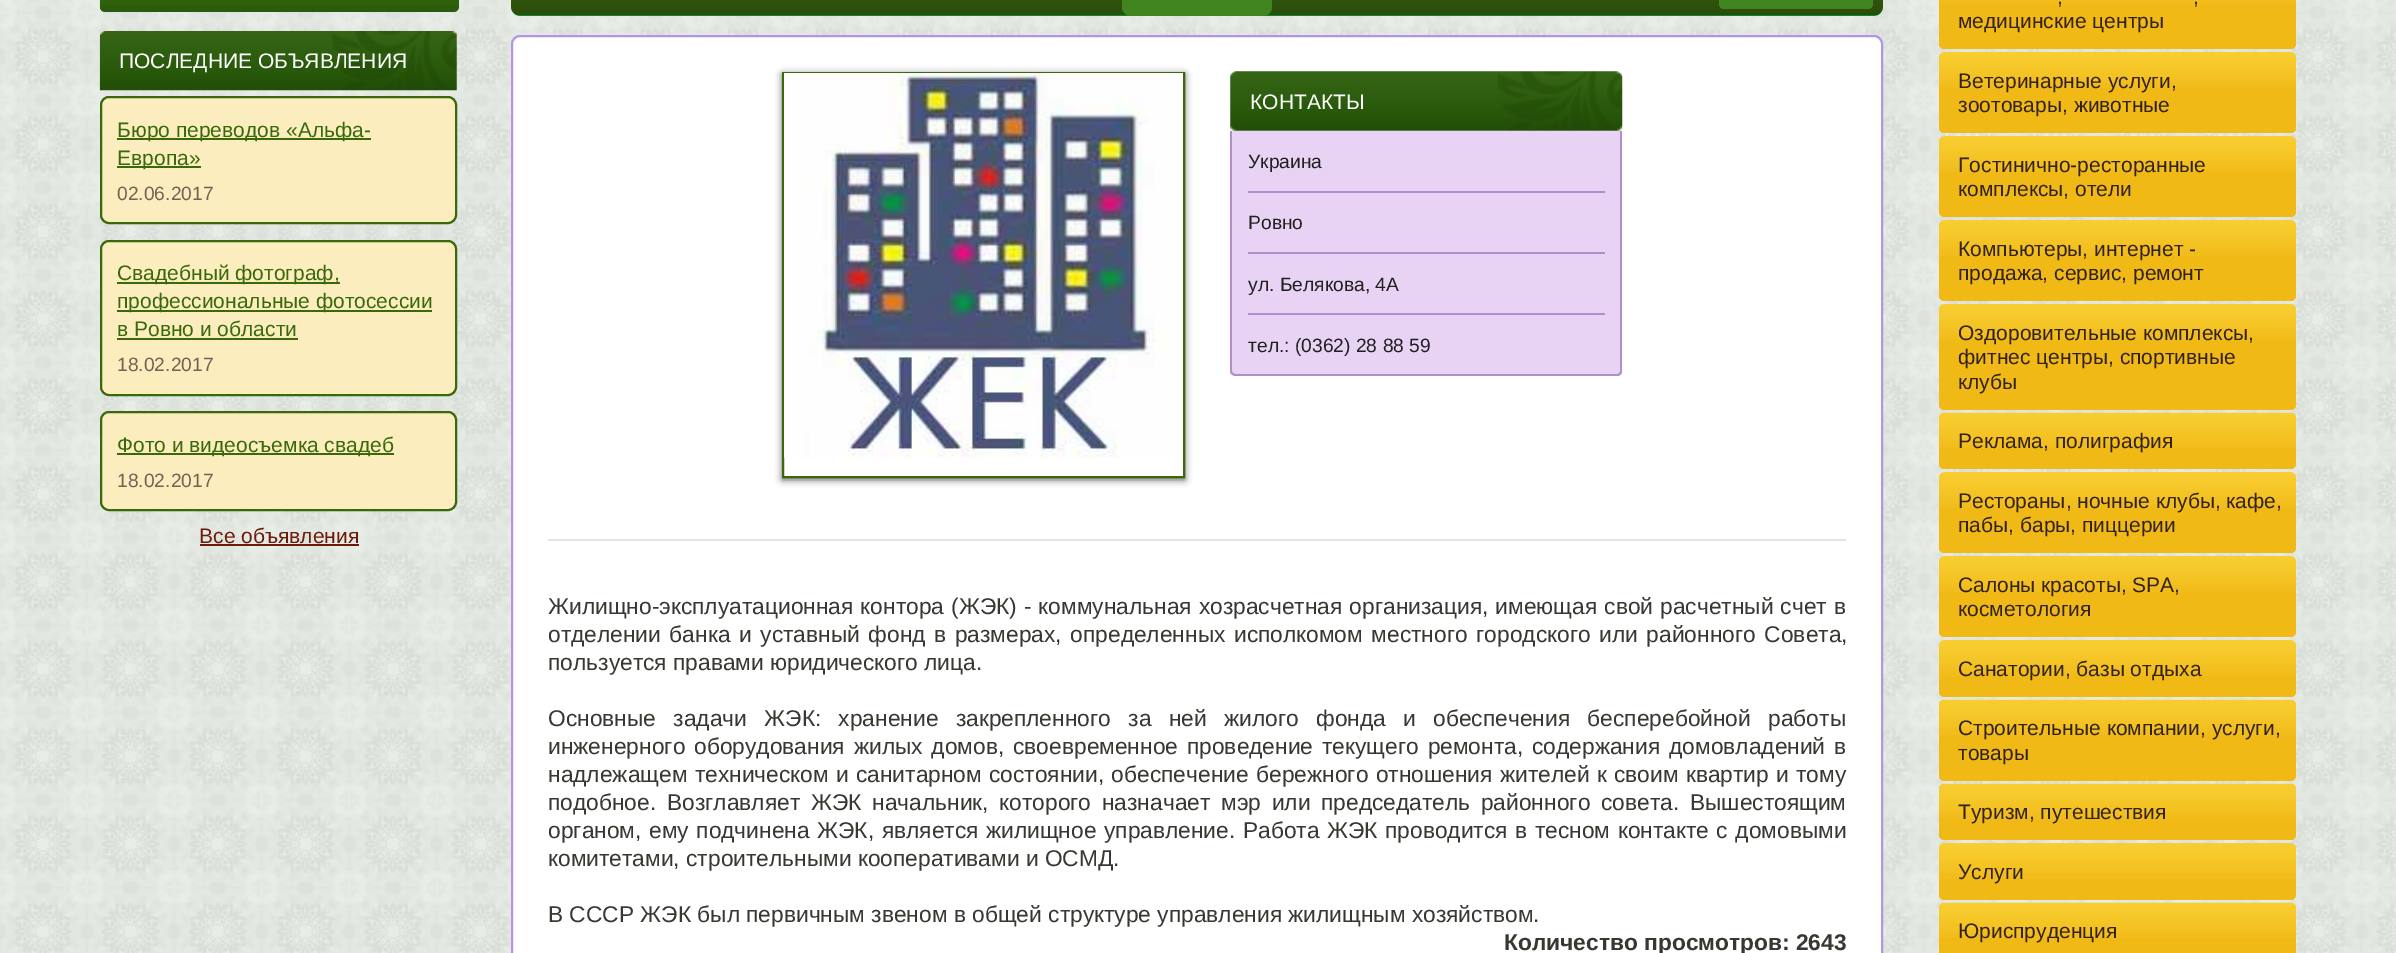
%!PS-Adobe-3.0
%%BoundingBox: 0 0 2396 953
%%LanguageLevel: 3
%%Pages: 1
%%EndComments
%%BeginProlog
/setalpha { dup .setfillconstantalpha .setstrokeconstantalpha } def
/rrect { 5 dict begin { /r /h /w /y /x } { exch def } forall
  x r add y moveto x w add y 2 copy h add r arct x w add y h add x 1 index r arct
  x y h add x y r arct x y 2 copy exch w add exch r arct closepath end } def
/softshadow { 12 dict begin { /a /b /q /h /w /y /x } { exch def } forall gsave /was 0 def
  9 -2 -9 { dup b mul 4 div /e exch def 1 sub .425 mul 2.718 exch exp 1 add a .99 .min exch div /now exch def
    1 1 now sub 1 was sub div sub setalpha /was now def
    w h .min e 2 mul add 0 gt { x e sub y e sub w e 2 mul add h e 2 mul add
      q e add b .6 mul add w h .min 2 div e add .min 0 .max rrect fill } if } for grestore end } def
/drawimage { 5 dict begin { /h /w /y /x /name } { exch def } forall
  gsave x y translate w h scale
  w h 8 [w 0 0 h 0 0] name (r) file false 3 colorimage grestore end } def
%%EndProlog
%%BeginSetup
<< /PageSize [2396 953] /PageUsesTransparency true >> setpagedevice
%%EndSetup
%%Page: 1 1
0 .pushpdf14devicefilter
0 953 translate 1 -1 scale
4 setmiterlimit
1 setgray
0 0 2396 953 rectfill
(images/1.raw) 0 0 2396 953 drawimage
0.11 0.361 0.141 setrgbcolor
100 -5 359 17 5 rrect fill
(images/2.raw) 99 0 360 12 drawimage
(images/3.raw) 99 31 358 60 drawimage
0.984 0.929 0.745 setrgbcolor
101 97 355 126 8 rrect gsave fill grestore
0.224 0.412 0.039 setrgbcolor
2 setlinewidth
stroke
117 138 254 2 rectfill
117 166 84 2 rectfill
0.984 0.929 0.745 setrgbcolor
101 241 355 154 8 rrect gsave fill grestore
0.224 0.412 0.039 setrgbcolor
stroke
117 282 223 2 rectfill
117 310 315 2 rectfill
117 338 181 2 rectfill
0.984 0.929 0.745 setrgbcolor
101 412 355 98 8 rrect gsave fill grestore
0.224 0.412 0.039 setrgbcolor
stroke
117 453 277 2 rectfill
0.427 0.102 0.031 setrgbcolor
200 544 159 2 rectfill
0.012 0.561 0.188 setrgbcolor
511 -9 1372 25 9 rrect fill
(images/4.raw) 511 0 1372 16 drawimage
0.251 0.522 0.125 setrgbcolor
1122 -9 150 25 9 rrect fill
1719 -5 154 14 5 rrect fill
1 setgray
512 36 1370 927 8 rrect gsave fill grestore
0.706 0.584 0.89 setrgbcolor
stroke
gsave
newpath 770 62 moveto 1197 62 lineto 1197 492 lineto 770 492 lineto closepath 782 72 moveto 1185 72 lineto 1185 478 lineto 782 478 lineto closepath eoclip newpath
0.4 setgray
782 74 403 406 0 3.5 1 softshadow
grestore
0.224 0.412 0.039 setrgbcolor
783 73 401 404 rectstroke
(images/5.raw) 784 73 399 385 drawimage
(images/6.raw) 1230 71 393 60 drawimage
0.91 0.827 0.957 setrgbcolor
newpath 1230 131 moveto 1622 131 lineto 1622 371 lineto 1622 374 1620 376 1617 376 curveto 1235 376 lineto 1232 376 1230 374 1230 371 curveto closepath fill
0.682 0.557 0.796 setrgbcolor
newpath 1230 131 moveto 1622 131 lineto 1622 371 lineto 1622 374 1620 376 1617 376 curveto 1236 376 lineto 1233 376 1230 374 1230 371 curveto closepath 1232 131 moveto 1620 131 lineto 1620 371 lineto 1620 373 1619 374 1617 374 curveto 1236 374 lineto 1234 374 1232 373 1232 371 curveto closepath eofill
1248 191 357 2 rectfill
1248 252 357 2 rectfill
1248 313 357 2 rectfill
0.894 setgray
548 539 1298 2 rectfill
0.941 0.725 0.086 setrgbcolor
1939 -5 357 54 5 rrect fill
0.949 0.741 0.11 setrgbcolor
1939 0 357 4 rectfill
0.941 0.725 0.086 setrgbcolor
1939 53 357 80 5 rrect fill
(images/7.raw) 1939 52 357 36 drawimage
1939 137 357 80 5 rrect fill
(images/8.raw) 1939 136 357 36 drawimage
1939 221 357 80 5 rrect fill
(images/9.raw) 1939 220 357 36 drawimage
1939 305 357 105 5 rrect fill
(images/10.raw) 1939 304 357 36 drawimage
1939 413 357 56 5 rrect fill
(images/11.raw) 1939 412 357 36 drawimage
1939 473 357 80 5 rrect fill
(images/12.raw) 1939 472 357 36 drawimage
1939 557 357 80 5 rrect fill
(images/13.raw) 1939 556 357 36 drawimage
1939 641 357 56 5 rrect fill
(images/14.raw) 1939 640 357 36 drawimage
1939 700 357 81 5 rrect fill
(images/15.raw) 1939 699 357 36 drawimage
1939 784 357 56 5 rrect fill
(images/16.raw) 1939 783 357 36 drawimage
1939 844 357 56 5 rrect fill
(images/17.raw) 1939 843 357 36 drawimage
1939 903 357 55 5 rrect fill
(images/18.raw) 1939 902 357 36 drawimage
/LiberationSans-Regular [21 0 0 -21 0 0] selectfont
1 setgray
119 68 moveto (ПОСЛЕДНИЕ ОБЪЯВЛЕНИЯ) show
0.224 0.412 0.039 setrgbcolor
117 137 moveto (Бюро переводов «Альфа-) show
117 165 moveto (Европа») show
/LiberationSans-Regular [19.25 0 0 -19.25 0 0] selectfont
0.463 0.38 0.329 setrgbcolor
117 200 moveto (02.06.2017) show
/LiberationSans-Regular [21 0 0 -21 0 0] selectfont
0.224 0.412 0.039 setrgbcolor
117 280 moveto (Свадебный фотограф,) show
117 308 moveto (профессиональные фотосессии) show
117 336 moveto (в Ровно и области) show
/LiberationSans-Regular [19.25 0 0 -19.25 0 0] selectfont
0.463 0.38 0.329 setrgbcolor
117 371 moveto (18.02.2017) show
/LiberationSans-Regular [21 0 0 -21 0 0] selectfont
0.224 0.412 0.039 setrgbcolor
117 452 moveto (Фото и видеосъемка свадеб) show
/LiberationSans-Regular [19.25 0 0 -19.25 0 0] selectfont
0.463 0.38 0.329 setrgbcolor
117 487 moveto (18.02.2017) show
/LiberationSans-Regular [21 0 0 -21 0 0] selectfont
0.427 0.102 0.031 setrgbcolor
199 543 moveto (Все объявления) show
1 setgray
1250 109 moveto (КОНТАКТЫ) show
/LiberationSans-Regular [19.25 0 0 -19.25 0 0] selectfont
0.125 setgray
1248 168 moveto (Украина) show
1248 229 moveto (Ровно) show
1248 291 moveto (ул. Белякова, 4А) show
1248 352 moveto (тел.: \(0362\) 28 88 59) show
/LiberationSans-Regular [22.75 0 0 -22.75 0 0] selectfont
0.224 0.216 0.192 setrgbcolor
548 614 moveto 0.75 0 32 (Жилищно-эксплуатационная контора \(ЖЭК\) - коммунальная хозрасчетная организация, имеющая свой расчетный счет в) widthshow
548 642 moveto 2.25 0 32 (отделении банка и уставный фонд в размерах, определенных исполкомом местного городского или районного Совета,) widthshow
548 670 moveto (пользуется правами юридического лица.) show
548 726 moveto 11 0 32 (Основные задачи ЖЭК: хранение закрепленного за ней жилого фонда и обеспечения бесперебойной работы) widthshow
548 754 moveto 2.6 0 32 (инженерного оборудования жилых домов, своевременное проведение текущего ремонта, содержания домовладений в) widthshow
548 782 moveto 1 0 32 (надлежащем техническом и санитарном состоянии, обеспечение бережного отношения жителей к своим квартир и тому) widthshow
548 810 moveto 4.4 0 32 (подобное. Возглавляет ЖЭК начальник, которого назначает мэр или председатель районного совета. Вышестоящим) widthshow
548 838 moveto 1.25 0 32 (органом, ему подчинена ЖЭК, является жилищное управление. Работа ЖЭК проводится в тесном контакте с домовыми) widthshow
548 866 moveto (комитетами, строительными кооперативами и ОСМД.) show
548 922 moveto (В СССР ЖЭК был первичным звеном в общей структуре управления жилищным хозяйством.) show
/LiberationSans-Bold [22.75 0 0 -22.75 0 0] selectfont
1504 950 moveto (Количество просмотров: 2643) show
/LiberationSans-Regular [21 0 0 -21 0 0] selectfont
0.2 0.133 0.098 setrgbcolor
2057 4 moveto (,) show
2193 4 moveto (,) show
1958 28 moveto (медицинские центры) show
1958 88 moveto (Ветеринарные услуги,) show
1958 112 moveto (зоотовары, животные) show
1958 172 moveto (Гостинично-ресторанные) show
1958 196 moveto (комплексы, отели) show
1958 256 moveto (Компьютеры, интернет -) show
1958 280 moveto (продажа, сервис, ремонт) show
1958 340 moveto (Оздоровительные комплексы,) show
1958 364 moveto (фитнес центры, спортивные) show
1958 389 moveto (клубы) show
1958 448 moveto (Реклама, полиграфия) show
1958 508 moveto (Рестораны, ночные клубы, кафе,) show
1958 532 moveto (пабы, бары, пиццерии) show
1958 592 moveto (Салоны красоты, SPA,) show
1958 616 moveto (косметология) show
1958 676 moveto (Санатории, базы отдыха) show
1958 735 moveto (Строительные компании, услуги,) show
1958 760 moveto (товары) show
1958 819 moveto (Туризм, путешествия) show
1958 879 moveto (Услуги) show
1958 938 moveto (Юриспруденция) show
.poppdf14devicefilter showpage
%%EOF
